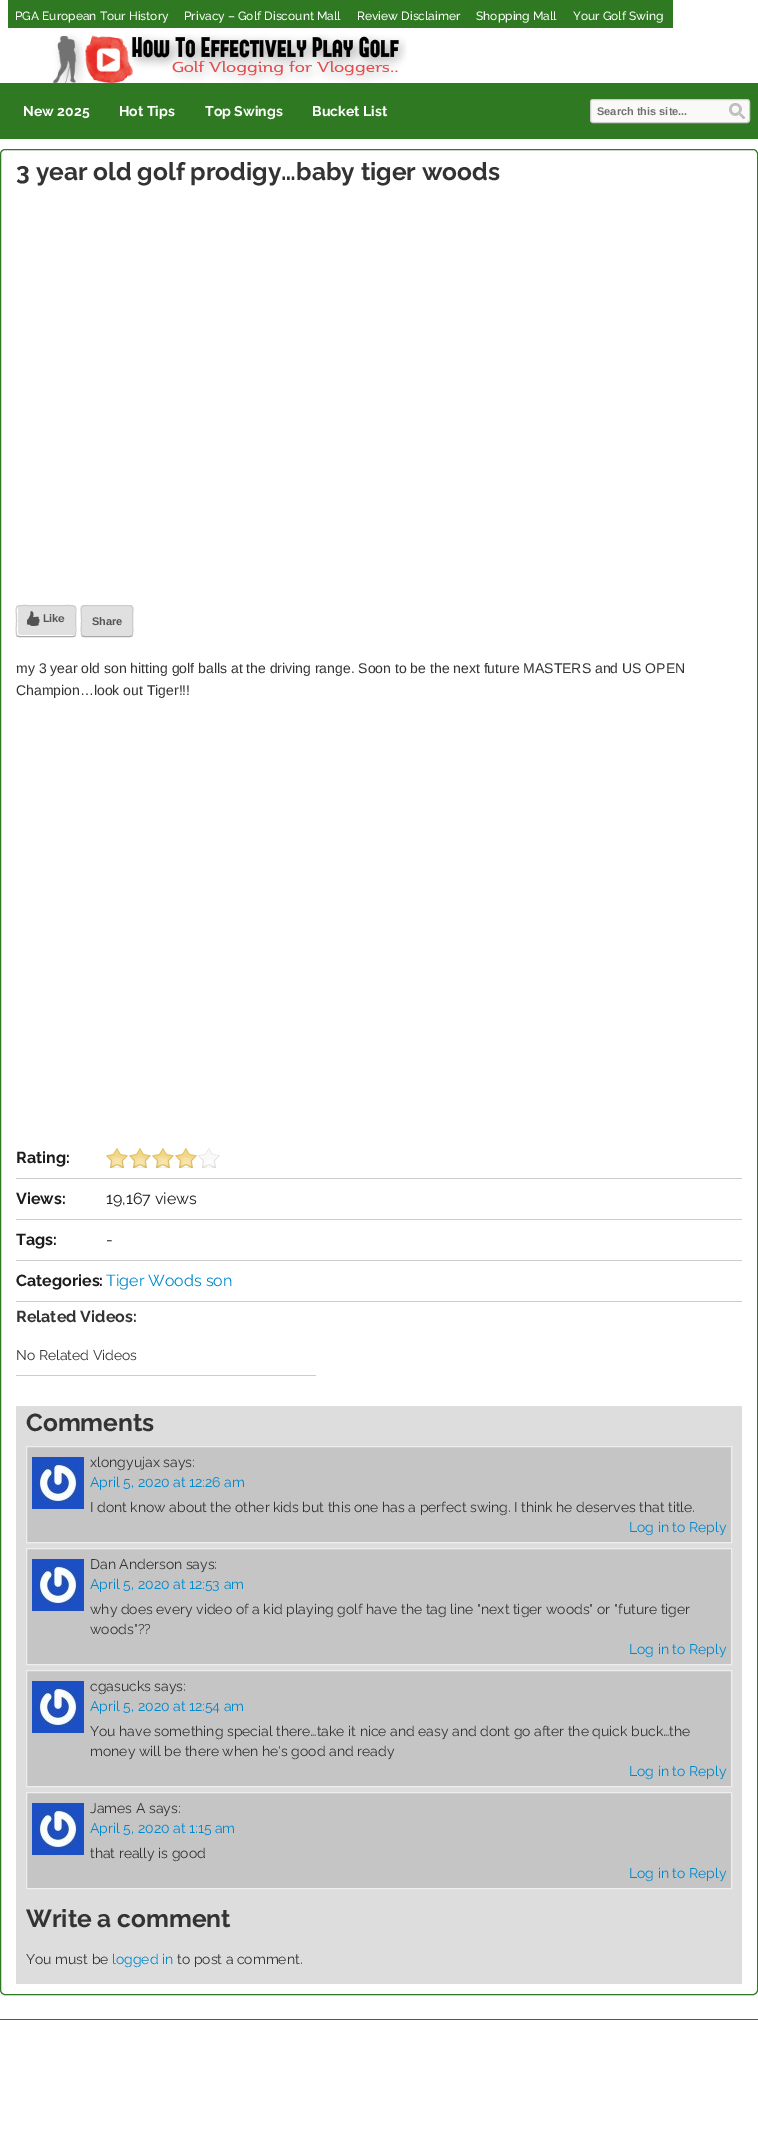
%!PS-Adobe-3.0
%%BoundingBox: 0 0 758 2137
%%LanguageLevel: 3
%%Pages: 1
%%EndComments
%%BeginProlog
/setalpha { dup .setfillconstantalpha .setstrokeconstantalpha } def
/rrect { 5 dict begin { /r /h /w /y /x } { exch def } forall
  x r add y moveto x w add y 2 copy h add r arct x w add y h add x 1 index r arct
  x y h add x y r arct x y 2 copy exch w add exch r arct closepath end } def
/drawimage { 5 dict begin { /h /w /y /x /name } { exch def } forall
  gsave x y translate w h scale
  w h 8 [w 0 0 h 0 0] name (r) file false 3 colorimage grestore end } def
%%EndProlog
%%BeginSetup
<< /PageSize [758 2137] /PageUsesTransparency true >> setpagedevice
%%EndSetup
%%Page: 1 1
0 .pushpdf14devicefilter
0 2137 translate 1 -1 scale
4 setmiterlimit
1 setgray
0 0 758 2137 rectfill
0.18 0.475 0.133 setrgbcolor
8 0 665 28 rectfill
(images/1.raw) 53 34 354 49 drawimage
0 83 758 56 rectfill
0.98 0.976 0.969 setrgbcolor
590.5 99.5 159 23 2.5 rrect gsave fill grestore
0.8 setgray
stroke
(images/2.raw) 729 103 16 16 drawimage
0.18 0.475 0.133 setrgbcolor
0.5 149.5 757 1845 4.5 rrect stroke
0.878 setgray
17 606 58 30 2 rrect fill
0.98 setalpha
1 setgray
newpath 18 606 moveto 16 607 17 615 17 617 curveto 17 630 lineto 17 638 18 636 28 636 curveto 74 636 lineto 75 635 lineto 29 635 lineto 16 635 18 637 18 624 curveto closepath fill
1 setalpha
0.667 setgray
newpath 75 636 moveto 73 636.5 lineto 19 636.5 lineto 17 636 lineto stroke
0.8 setgray
newpath 17 636 moveto 15.5 634 16.5 623.5 16.5 621 curveto 16.5 604.5 13 605.5 28 605.5 curveto 64 605.5 lineto 79 605.5 75.5 604.5 75.5 621 curveto 75.5 623.5 76.5 634 75 636 curveto stroke
(images/3.raw) 27 611 13 15 drawimage
0.878 setgray
81 605 52 32 3 rrect fill
0.667 setgray
newpath 132 636 moveto 130 636.5 lineto 84 636.5 lineto 82 636 lineto stroke
0.8 setgray
newpath 82 636 moveto 80.5 634 81.5 623.5 81.5 621 curveto 81.5 605 78 605.5 91.5 605.5 curveto 122.5 605.5 lineto 136 605.5 132.5 605 132.5 621 curveto 132.5 623.5 133.5 634 132 636 curveto stroke
16 1178 726 1 rectfill
0.957 0.761 0.224 setrgbcolor
106 1148 91 20 rectfill
(images/4.raw) 106 1148 114 20 drawimage
0.8 setgray
16 1219 726 1 rectfill
16 1260 726 1 rectfill
16 1301 726 1 rectfill
16 1375 300 1 rectfill
0.867 setgray
16 1406 726 578 rectfill
0.773 setgray
newpath 26.5 1446.5 moveto 731.5 1446.5 lineto 731.5 1542.5 lineto 26.5 1542.5 lineto closepath gsave fill grestore
0.933 setgray
stroke
(images/5.raw) 32 1457 52 52 drawimage
0.773 setgray
newpath 26.5 1548.5 moveto 731.5 1548.5 lineto 731.5 1664.5 lineto 26.5 1664.5 lineto closepath gsave fill grestore
0.933 setgray
stroke
(images/5.raw) 32 1559 52 52 drawimage
0.773 setgray
newpath 26.5 1670.5 moveto 731.5 1670.5 lineto 731.5 1786.5 lineto 26.5 1786.5 lineto closepath gsave fill grestore
0.933 setgray
stroke
(images/5.raw) 32 1681 52 52 drawimage
0.773 setgray
newpath 26.5 1792.5 moveto 731.5 1792.5 lineto 731.5 1888.5 lineto 26.5 1888.5 lineto closepath gsave fill grestore
0.933 setgray
stroke
(images/5.raw) 32 1803 52 52 drawimage
0.18 0.475 0.133 setrgbcolor
0 2019 758 1 rectfill
/Raleway-Medium [12 0 0 -12 0 0] selectfont
1 setgray
15 20 moveto (PGA European Tour History) show
184 20 moveto (Privacy – Golf Discount Mall) show
357 20 moveto (Review Disclaimer) show
476 20 moveto (Shopping Mall) show
573 20 moveto (Your Golf Swing) show
/Raleway-Bold [14 0 0 -14 0 0] selectfont
23 116 moveto (New 2025) show
119 116 moveto (Hot Tips) show
205 116 moveto (Top Swings) show
312 116 moveto (Bucket List) show
/LiberationSans-Bold [11 0 0 -11 0 0] selectfont
0.443 setgray
597 115 moveto (Search this site...) show
/Raleway-Bold [24.5 0 0 -24.5 0 0] selectfont
0.2 setgray
16 180 moveto (3 year old golf prodigy…baby tiger woods) show
/Raleway-Bold [11 0 0 -11 0 0] selectfont
0.333 setgray
43 622 moveto (Like) show
/LiberationSans-Bold [11 0 0 -11 0 0] selectfont
92 625 moveto (Share) show
/LiberationSans-Regular [14 0 0 -14 0 0] selectfont
0.2 setgray
16 673 moveto (my 3 year old son hitting golf balls at the driving range. Soon to be the next future MASTERS and US OPEN) show
16 695 moveto (Champion…look out Tiger!!!) show
/Raleway-Bold [16 0 0 -16 0 0] selectfont
0.114 0.106 0.106 setrgbcolor
16 1163 moveto (Rating:) show
16 1204 moveto (Views:) show
/Raleway-Regular [16 0 0 -16 0 0] selectfont
106 1204 moveto (19,167 views) show
/Raleway-Bold [16 0 0 -16 0 0] selectfont
16 1245 moveto (Tags:) show
/Raleway-Regular [16 0 0 -16 0 0] selectfont
106 1245 moveto (-) show
/Raleway-Bold [16 0 0 -16 0 0] selectfont
16 1286 moveto (Categories:) show
/Raleway-Regular [16 0 0 -16 0 0] selectfont
0 0.533 0.8 setrgbcolor
106 1286 moveto (Tiger Woods son) show
/Raleway-Bold [16 0 0 -16 0 0] selectfont
0.2 setgray
16 1322 moveto (Related Videos:) show
/Raleway-Regular [14 0 0 -14 0 0] selectfont
16 1360 moveto (No Related Videos) show
/Raleway-Bold [24.5 0 0 -24.5 0 0] selectfont
26 1431 moveto (Comments) show
/Raleway-Regular [14 0 0 -14 0 0] selectfont
90 1467 moveto (xlongyujax says:) show
0 0.533 0.8 setrgbcolor
90 1487 moveto (April 5, 2020 at 12:26 am) show
0.2 setgray
90 1512 moveto (I dont know about the other kids but this one has a perfect swing. I think he deserves that title.) show
0 0.533 0.8 setrgbcolor
629 1532 moveto (Log in to Reply) show
0.2 setgray
90 1569 moveto (Dan Anderson says:) show
0 0.533 0.8 setrgbcolor
90 1589 moveto (April 5, 2020 at 12:53 am) show
0.2 setgray
90 1614 moveto (why does every video of a kid playing golf have the tag line "next tiger woods" or "future tiger) show
90 1634 moveto (woods"??) show
0 0.533 0.8 setrgbcolor
629 1654 moveto (Log in to Reply) show
0.2 setgray
90 1691 moveto (cgasucks says:) show
0 0.533 0.8 setrgbcolor
90 1711 moveto (April 5, 2020 at 12:54 am) show
0.2 setgray
90 1736 moveto (You have something special there…take it nice and easy and dont go after the quick buck…the) show
90 1756 moveto (money will be there when he's good and ready) show
0 0.533 0.8 setrgbcolor
629 1776 moveto (Log in to Reply) show
0.2 setgray
90 1813 moveto (James A says:) show
0 0.533 0.8 setrgbcolor
90 1833 moveto (April 5, 2020 at 1:15 am) show
0.2 setgray
90 1858 moveto (that really is good) show
0 0.533 0.8 setrgbcolor
629 1878 moveto (Log in to Reply) show
/Raleway-Bold [24.5 0 0 -24.5 0 0] selectfont
0.2 setgray
26 1927 moveto (Write a comment) show
/Raleway-Regular [14 0 0 -14 0 0] selectfont
26 1964 moveto (You must be) show
0 0.533 0.8 setrgbcolor
112 1964 moveto (logged in) show
0.2 setgray
177 1964 moveto (to post a comment.) show
.poppdf14devicefilter showpage
%%EOF
